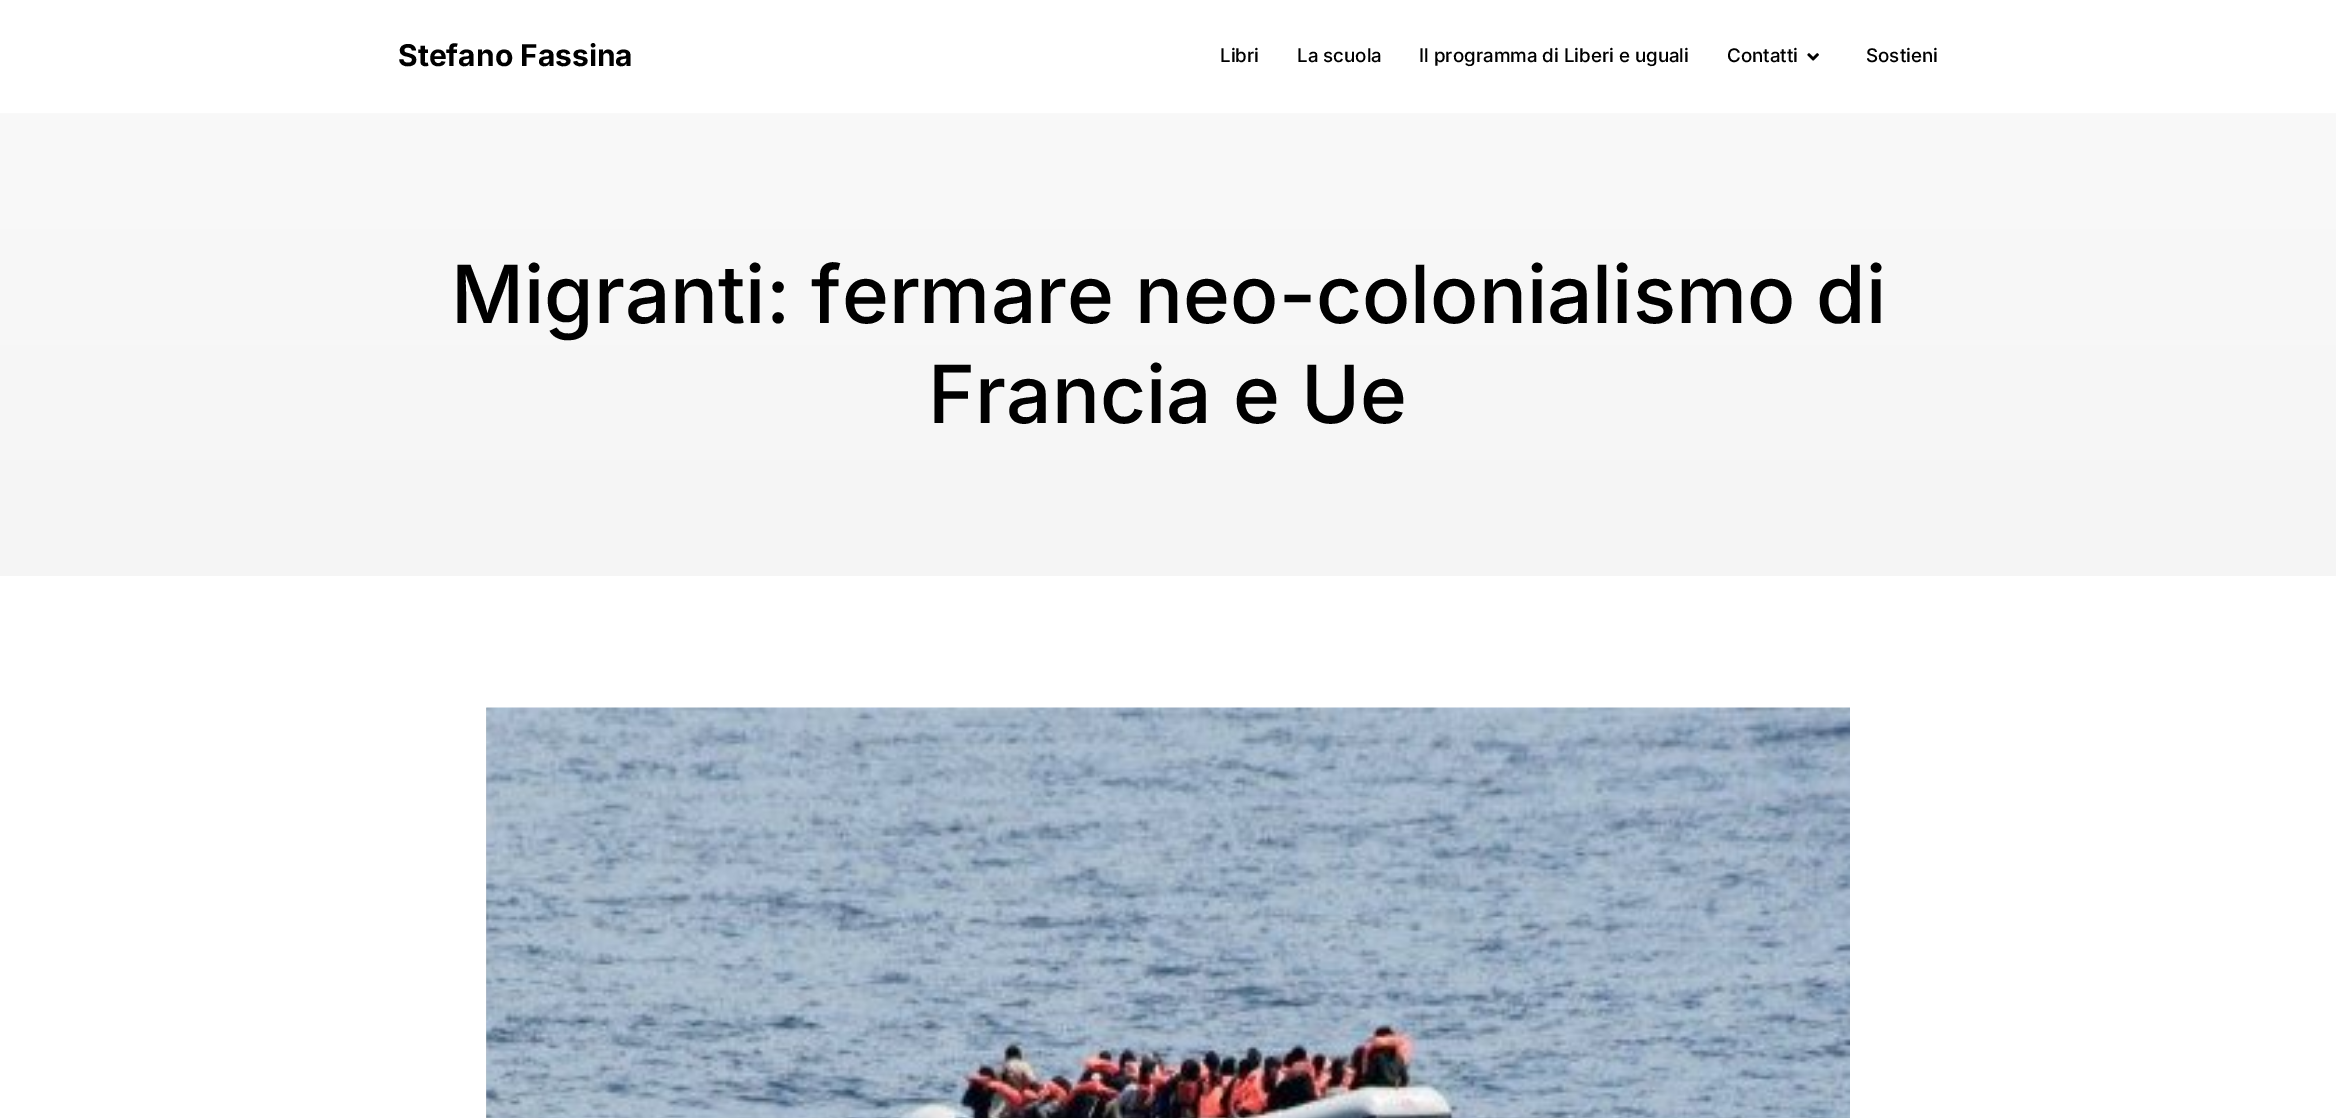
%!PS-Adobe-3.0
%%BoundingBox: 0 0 2336 1118
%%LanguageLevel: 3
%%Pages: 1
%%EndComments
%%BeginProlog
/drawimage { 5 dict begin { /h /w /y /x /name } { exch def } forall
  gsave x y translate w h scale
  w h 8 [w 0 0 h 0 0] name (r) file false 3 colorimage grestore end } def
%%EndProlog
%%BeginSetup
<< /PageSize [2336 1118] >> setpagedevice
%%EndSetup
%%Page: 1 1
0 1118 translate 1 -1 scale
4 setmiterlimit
1 setgray
0 0 2336 1118 rectfill
(images/1.raw) 1807 53 12 8 drawimage
gsave newpath 0 113 moveto 2336 113 lineto 2336 576 lineto 0 576 lineto closepath clip newpath
<< /ShadingType 2 /ColorSpace /DeviceRGB /Coords [1168 576 1168 0] /Extend [true true] /Function << /FunctionType 2 /Domain [0 1] /C0 [0.961 0.961 0.961] /C1 [0.98 0.98 0.98] /N 1 >> >> shfill grestore
(images/2.raw) 486 707 1364 411 drawimage
/Inter-Bold [30 0 0 -30 0 0] selectfont
0 setgray
398 66 moveto (Stefano Fassina) show
/Inter-Medium [18.75 0 0 -18.75 0 0] selectfont
1220 62 moveto (Libri) show
1297 62 moveto (La scuola) show
1419 62 moveto (Il programma di Liberi e uguali) show
1727 62 moveto (Contatti) show
1866 62 moveto (Sostieni) show
/Inter-Medium [80 0 0 -80 0 0] selectfont
451 323 moveto (Migranti: fermare neo-colonialismo di) show
928 423 moveto (Francia e Ue) show
showpage
%%EOF
